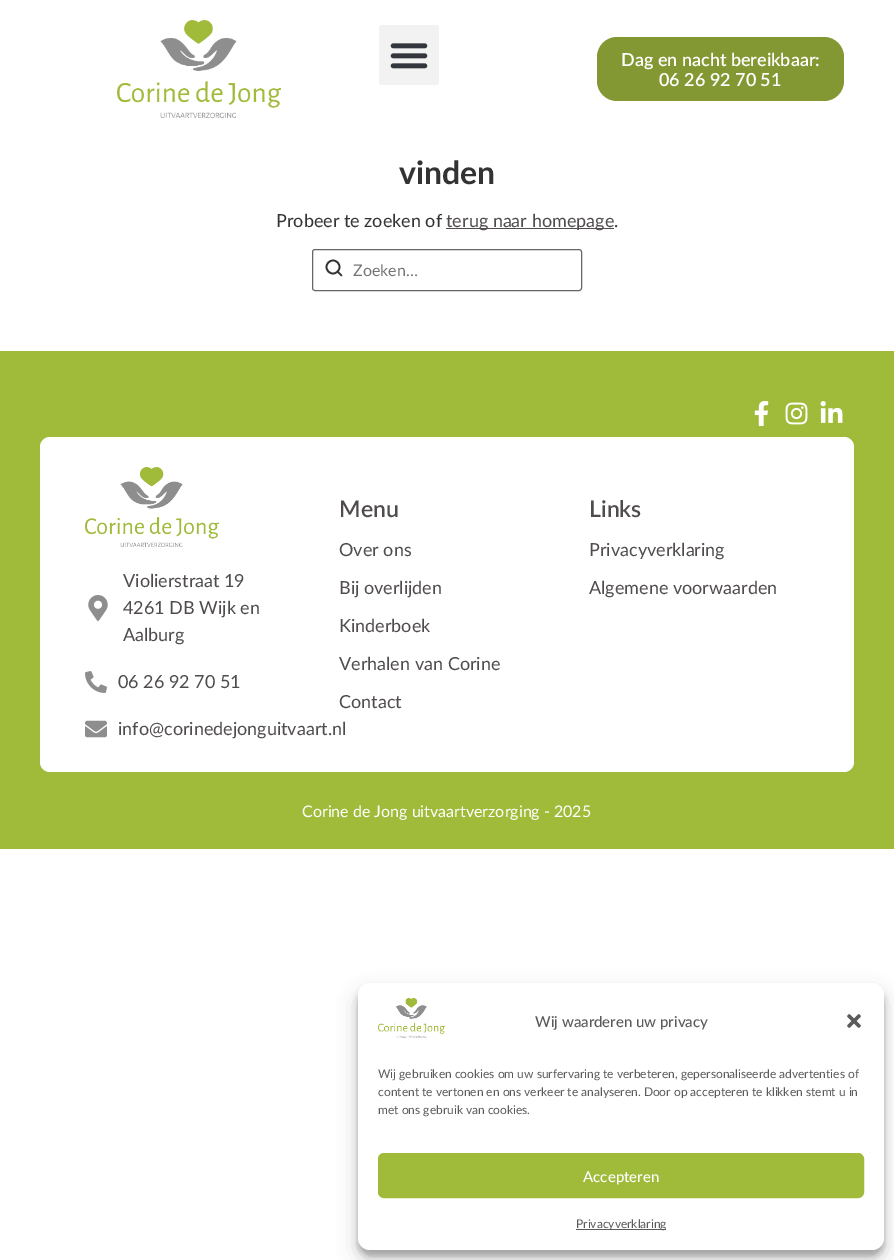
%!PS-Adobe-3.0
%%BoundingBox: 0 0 894 1260
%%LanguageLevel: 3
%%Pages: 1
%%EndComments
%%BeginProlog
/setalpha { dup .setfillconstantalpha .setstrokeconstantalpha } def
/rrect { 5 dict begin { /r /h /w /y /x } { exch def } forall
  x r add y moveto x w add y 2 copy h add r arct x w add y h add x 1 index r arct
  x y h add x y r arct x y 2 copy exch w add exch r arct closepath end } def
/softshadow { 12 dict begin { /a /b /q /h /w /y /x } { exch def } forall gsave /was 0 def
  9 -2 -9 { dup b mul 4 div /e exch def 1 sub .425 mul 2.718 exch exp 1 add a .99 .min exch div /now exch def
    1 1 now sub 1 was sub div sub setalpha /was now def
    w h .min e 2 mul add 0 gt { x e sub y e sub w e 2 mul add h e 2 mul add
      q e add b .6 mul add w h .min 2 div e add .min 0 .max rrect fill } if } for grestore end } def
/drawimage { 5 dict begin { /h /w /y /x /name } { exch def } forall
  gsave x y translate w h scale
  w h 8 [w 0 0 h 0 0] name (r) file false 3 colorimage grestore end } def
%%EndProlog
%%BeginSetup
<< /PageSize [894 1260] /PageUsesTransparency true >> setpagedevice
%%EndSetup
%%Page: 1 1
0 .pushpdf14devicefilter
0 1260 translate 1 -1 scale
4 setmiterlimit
1 setgray
0 0 894 1260 rectfill
(images/1.raw) 117 20 164 98 drawimage
0.949 setgray
379 25 60 60 3 rrect fill
(images/2.raw) 390 43 38 26 drawimage
0.514 0.596 0.196 setrgbcolor
597 37 247 64 20 rrect fill
0.314 0.298 0.298 setrgbcolor
446 228 168 1 rectfill
0.4 setgray
312.5 249.5 269 41 2.5 rrect stroke
0.2 setgray
1.7 setlinewidth
newpath 333 267 6.5 0 360 arc closepath stroke
1 setlinecap
1 setlinejoin
newpath 341.5 275.5 moveto 338 272 lineto stroke
0.627 0.729 0.227 setrgbcolor
0 351 894 498 rectfill
(images/3.raw) 754 401 15 25 drawimage
(images/4.raw) 785 402 23 23 drawimage
(images/5.raw) 820 401 23 22 drawimage
1 setgray
40 437 814 335 10 rrect fill
(images/6.raw) 85 467 134 80 drawimage
(images/7.raw) 88 595 20 26 drawimage
(images/8.raw) 85 671 22 22 drawimage
(images/9.raw) 85 720 22 18 drawimage
0 setgray
358 989 526 267 12 3 0.23 softshadow
358 993 526 267 12 10 0.19 softshadow
1 setgray
358 983 526 267 12 rrect fill
(images/10.raw) 378 997 67 41 drawimage
(images/11.raw) 847 1014 14 14 drawimage
0.627 0.729 0.227 setrgbcolor
378.5 1153.5 485 44 5.5 rrect gsave fill grestore
1 setlinewidth
0 setlinecap
0 setlinejoin
stroke
0.353 setgray
576 1229 90 1 rectfill
/Lato-SemiBold [18 0 0 -18 0 0] selectfont
1 setgray
621 66 moveto (Dag en nacht bereikbaar:) show
659 86 moveto (06 26 92 70 51) show
/Lato-Bold [32 0 0 -32 0 0] selectfont
0.2 setgray
399 184 moveto (vinden) show
/Lato-Regular [18 0 0 -18 0 0] selectfont
276 227 moveto (Probeer te zoeken of) show
0.314 0.298 0.298 setrgbcolor
446 227 moveto (terug naar homepage) show
0.2 setgray
614 227 moveto (.) show
/Lato-Regular [16 0 0 -16 0 0] selectfont
0.459 setgray
353 276 moveto (Zoeken…) show
/Lato-SemiBold [23 0 0 -23 0 0] selectfont
0.314 0.298 0.298 setrgbcolor
339 517 moveto (Menu) show
/Lato-Regular [18 0 0 -18 0 0] selectfont
339 556 moveto (Over ons) show
339 594 moveto (Bij overlijden) show
339 632 moveto (Kinderboek) show
339 670 moveto (Verhalen van Corine) show
339 708 moveto (Contact) show
/Lato-SemiBold [23 0 0 -23 0 0] selectfont
589 517 moveto (Links) show
/Lato-Regular [18 0 0 -18 0 0] selectfont
589 556 moveto (Privacyverklaring) show
589 594 moveto (Algemene voorwaarden) show
123 587 moveto (Violierstraat 19) show
123 614 moveto (4261 DB Wijk en) show
123 641 moveto (Aalburg) show
118 688 moveto (06 26 92 70 51) show
118 735 moveto (info@corinedejonguitvaart.nl) show
/Lato-Regular [16 0 0 -16 0 0] selectfont
1 setgray
302 817 moveto (Corine de Jong uitvaartverzorging - 2025) show
/Lato-Medium [15 0 0 -15 0 0] selectfont
0.353 setgray
535 1027 moveto (Wij waarderen uw privacy) show
/Lato-Regular [12 0 0 -12 0 0] selectfont
378 1078 moveto (Wij gebruiken cookies om uw surfervaring te verbeteren, gepersonaliseerde advertenties of) show
378 1096 moveto (content te vertonen en ons verkeer te analyseren. Door op accepteren te klikken stemt u in) show
378 1114 moveto (met ons gebruik van cookies.) show
/Lato-Medium [15 0 0 -15 0 0] selectfont
1 setgray
583 1182 moveto (Accepteren) show
/Lato-Regular [12 0 0 -12 0 0] selectfont
0.353 setgray
576 1228 moveto (Privacyverklaring) show
.poppdf14devicefilter showpage
%%EOF
